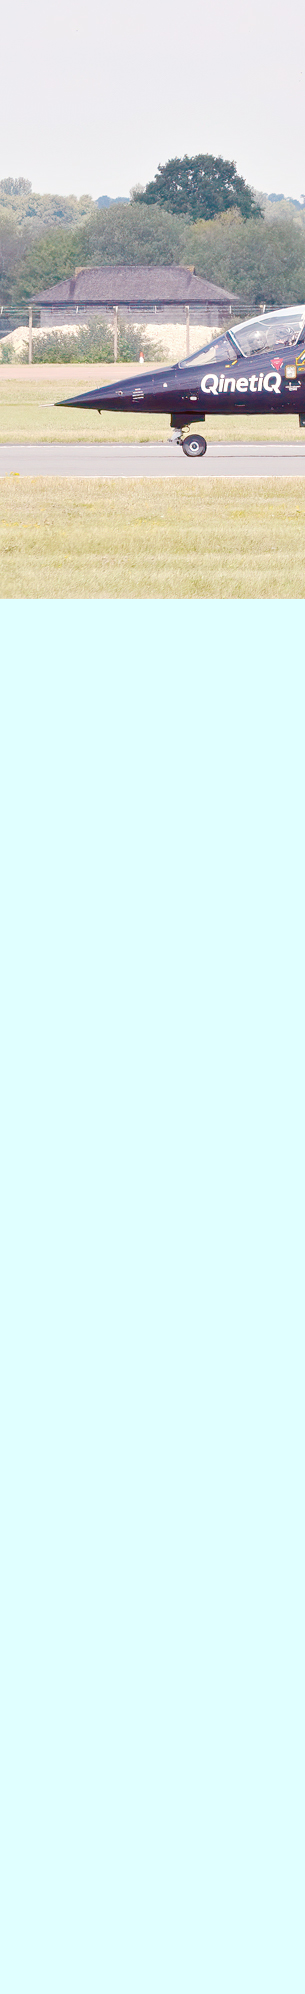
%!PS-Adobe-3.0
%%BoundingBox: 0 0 305 1994
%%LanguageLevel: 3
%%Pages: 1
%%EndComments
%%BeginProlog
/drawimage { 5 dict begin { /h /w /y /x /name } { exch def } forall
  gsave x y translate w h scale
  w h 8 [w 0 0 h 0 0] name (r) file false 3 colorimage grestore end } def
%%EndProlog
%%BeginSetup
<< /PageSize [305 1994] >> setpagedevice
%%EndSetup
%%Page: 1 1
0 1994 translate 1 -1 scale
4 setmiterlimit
0.878 1 1 setrgbcolor
0 0 305 1994 rectfill
(images/1.raw) 0 0 305 599 drawimage
showpage
%%EOF
